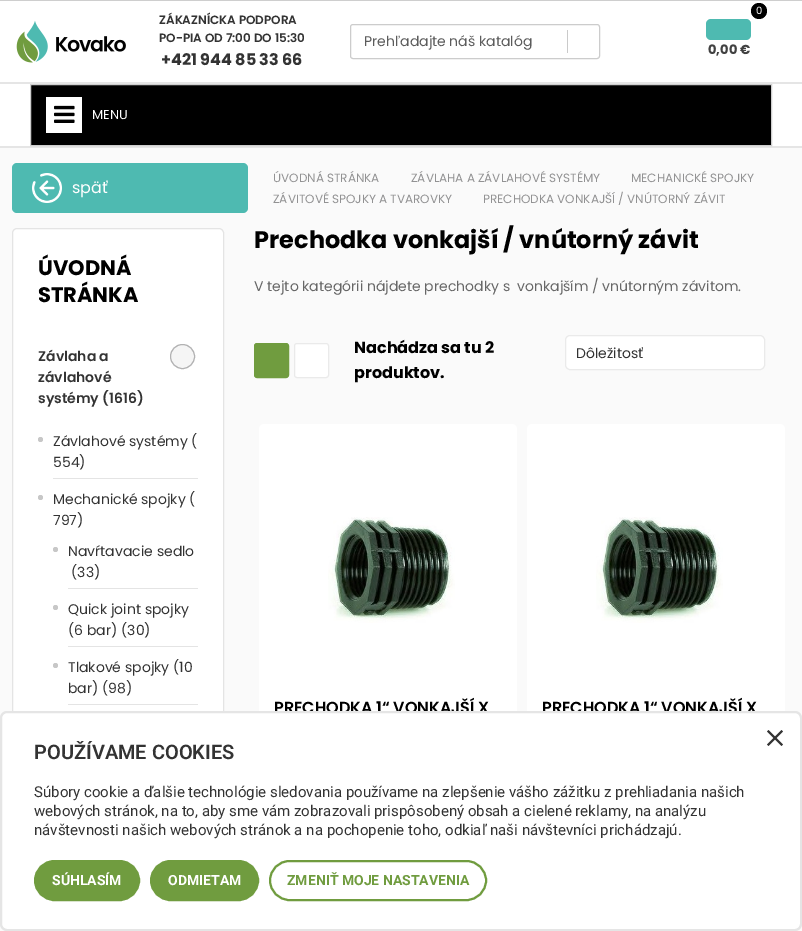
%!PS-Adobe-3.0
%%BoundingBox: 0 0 802 931
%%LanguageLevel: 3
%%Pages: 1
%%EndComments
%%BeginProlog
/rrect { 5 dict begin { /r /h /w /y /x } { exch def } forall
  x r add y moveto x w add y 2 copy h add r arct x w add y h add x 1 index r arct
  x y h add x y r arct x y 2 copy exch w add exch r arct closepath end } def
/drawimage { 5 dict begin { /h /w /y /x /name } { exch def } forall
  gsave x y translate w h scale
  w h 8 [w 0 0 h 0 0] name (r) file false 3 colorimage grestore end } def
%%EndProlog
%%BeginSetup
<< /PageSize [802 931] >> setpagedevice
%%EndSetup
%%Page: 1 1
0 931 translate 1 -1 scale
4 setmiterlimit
0.808 setgray
0 0 802 931 rectfill
1 setgray
0 1 802 145 rectfill
(images/1.raw) 16 20 110 43 drawimage
0.8 setgray
350.5 24.5 249 34 2.5 rrect stroke
0.792 setgray
567 30 1 23 rectfill
0.306 0.729 0.694 setrgbcolor
706 19 45 21 5 rrect fill
0 setgray
newpath 759 11 8 0 360 arc closepath fill
0.898 setgray
0 82 802 2 rectfill
0 146 802 2 rectfill
0 setgray
newpath 30.5 84.5 moveto 771.5 84.5 lineto 771.5 145.5 lineto 30.5 145.5 lineto closepath gsave fill grestore
0.808 setgray
stroke
1 setgray
46 97 36 36 rectfill
(images/2.raw) 54 105 21 18 drawimage
0.98 setgray
0 148 802 783 rectfill
0.306 0.729 0.694 setrgbcolor
12 163 236 50 5 rrect fill
(images/3.raw) 32 173 30 30 drawimage
1 setgray
12.5 228.5 211 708 4.5 rrect gsave fill grestore
0.894 setgray
stroke
0.961 setgray
newpath 182.5 356.5 12 0 360 arc closepath gsave fill grestore
0.698 0.698 0.702 setrgbcolor
stroke
0.894 setgray
53 478 145 1 rectfill
0.78 setgray
newpath 40.5 439.5 2.5 0 360 arc closepath fill
newpath 40.5 497.5 2.5 0 360 arc closepath fill
0.894 setgray
68 588 130 1 rectfill
0.78 setgray
newpath 55.5 549.5 2.5 0 360 arc closepath fill
0.894 setgray
68 646 130 1 rectfill
0.78 setgray
newpath 55.5 607.5 2.5 0 360 arc closepath fill
0.894 setgray
68 704 130 1 rectfill
0.78 setgray
newpath 55.5 665.5 2.5 0 360 arc closepath fill
0.439 0.612 0.247 setrgbcolor
254.5 343.5 34 34 2.5 rrect gsave fill grestore
stroke
1 setgray
294.5 343.5 34 34 2.5 rrect gsave fill grestore
0.918 setgray
stroke
1 setgray
565.5 335.5 199 34 4.5 rrect gsave fill grestore
0.918 setgray
stroke
1 setgray
259 424 258 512 5 rrect fill
(images/4.raw) 328 517 127 106 drawimage
527 424 258 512 5 rrect fill
(images/5.raw) 596 517 127 106 drawimage
/Poppins-SemiBold [12 0 0 -12 0 0] selectfont
0.2 setgray
159 24 moveto (ZÁKAZNÍCKA PODPORA) show
159 42 moveto (PO-PIA OD 7:00 DO 15:30) show
/Poppins-Bold [16 0 0 -16 0 0] selectfont
161 65 moveto (+421 944 85 33 66) show
/Poppins-Regular [14 0 0 -14 0 0] selectfont
0.361 setgray
364 46 moveto (Prehľadajte náš katalóg) show
/Poppins-Regular [10 0 0 -10 0 0] selectfont
1 setgray
756 14 moveto (0) show
/Poppins-Bold [13 0 0 -13 0 0] selectfont
0.255 setgray
708 54 moveto (0,00 €) show
/Poppins-Regular [13 0 0 -13 0 0] selectfont
1 setgray
92 119 moveto (MENU) show
/Poppins-Regular [16 0 0 -16 0 0] selectfont
72 193 moveto (späť) show
/Poppins-Regular [12 0 0 -12 0 0] selectfont
0.573 0.573 0.576 setrgbcolor
273 182 moveto (ÚVODNÁ STRÁNKA) show
411 182 moveto (ZÁVLAHA A ZÁVLAHOVÉ SYSTÉMY) show
631 182 moveto (MECHANICKÉ SPOJKY) show
273 203 moveto (ZÁVITOVÉ SPOJKY A TVAROVKY) show
483 203 moveto (PRECHODKA VONKAJŠÍ / VNÚTORNÝ ZÁVIT) show
/Poppins-Bold [21 0 0 -21 0 0] selectfont
0 setgray
38 275 moveto (ÚVODNÁ) show
38 302 moveto (STRÁNKA) show
/Poppins-SemiBold [14 0 0 -14 0 0] selectfont
0.2 setgray
38 361 moveto (Závlaha a) show
38 382 moveto (závlahové) show
38 403 moveto (systémy) show
102 403 moveto (\(1616\)) show
/Poppins-Regular [14 0 0 -14 0 0] selectfont
191 446 moveto (\() show
53 467 moveto (554\)) show
53 446 moveto (Závlahové systémy) show
189 504 moveto (\() show
53 525 moveto (797\)) show
53 504 moveto (Mechanické spojky) show
68 556 moveto (Navŕtavacie sedlo) show
71 577 moveto (\(33\)) show
68 614 moveto (Quick joint spojky) show
68 635 moveto (\(6 bar\)) show
121 635 moveto (\(30\)) show
68 672 moveto (Tlakové spojky \(10) show
68 693 moveto (bar\)) show
102 693 moveto (\(98\)) show
/Poppins-Bold [24 0 0 -24 0 0] selectfont
0 setgray
254 248 moveto (Prechodka vonkajší / vnútorný závit) show
/Poppins-Regular [14 0 0 -14 0 0] selectfont
0.404 setgray
254 291 moveto (V tejto kategórii nájdete prechodky s  vonkajším / vnútorným závitom.) show
/Poppins-Bold [16 0 0 -16 0 0] selectfont
0 setgray
354 353 moveto (Nachádza sa tu 2) show
354 378 moveto (produktov.) show
/Poppins-Regular [14 0 0 -14 0 0] selectfont
0.2 setgray
576 358 moveto (Dôležitosť) show
/Poppins-SemiBold [16 0 0 -16 0 0] selectfont
0 setgray
274 713 moveto (PRECHODKA 1“ VONKAJŠÍ X) show
542 713 moveto (PRECHODKA 1“ VONKAJŠÍ X) show
1 setgray
1 712 800 218 6 rrect gsave fill grestore
0.898 setgray
2 setlinewidth
stroke
0.2 setgray
newpath 781.5 730 moveto 783 731.5 lineto 768.5 746 lineto 767 744.5 lineto closepath fill
newpath 767 731.5 moveto 768.5 730 lineto 783 744.5 lineto 781.5 746 lineto closepath fill
/Roboto-SemiBold [20 0 0 -20 0 0] selectfont
34 759 moveto (POUŽÍVAME COOKIES) show
/Roboto-Regular [15 0 0 -15 0 0] selectfont
34 797 moveto (Súbory cookie a ďalšie technológie sledovania používame na zlepšenie vášho zážitku z prehliadania našich) show
34 816 moveto (webových stránok, na to, aby sme vám zobrazovali prispôsobený obsah a cielené reklamy, na analýzu) show
34 835 moveto (návštevnosti našich webových stránok a na pochopenie toho, odkiaľ naši návštevníci prichádzajú.) show
0.439 0.612 0.247 setrgbcolor
35 861 104 39 19.5 rrect gsave fill grestore
stroke
/Roboto-Bold [14 0 0 -14 0 0] selectfont
1 setgray
52 885 moveto (SÚHLASÍM) show
0.439 0.612 0.247 setrgbcolor
151 861 107 39 19.5 rrect gsave fill grestore
stroke
1 setgray
168 885 moveto (ODMIETAM) show
0.439 0.612 0.247 setrgbcolor
270 861 216 39 19.5 rrect stroke
287 885 moveto (ZMENIŤ MOJE NASTAVENIA) show
showpage
%%EOF
